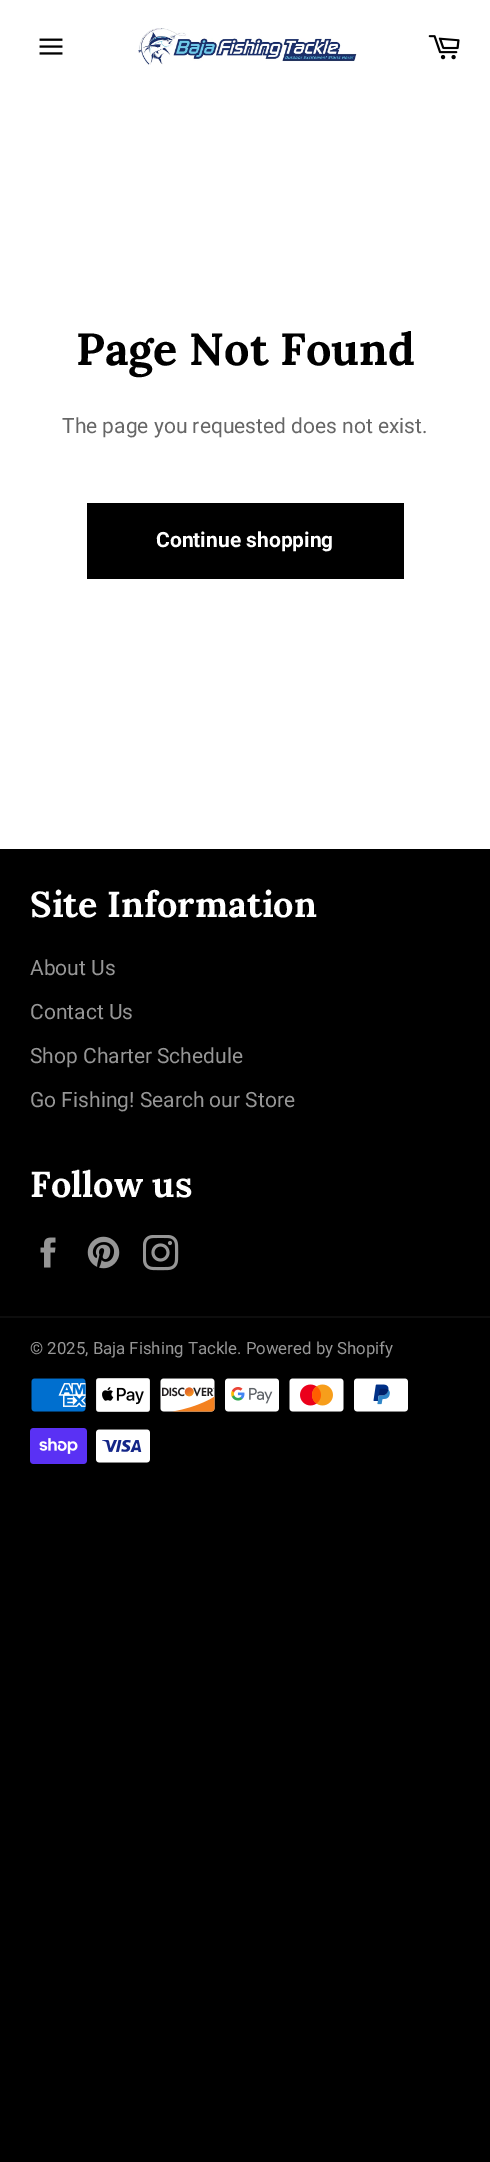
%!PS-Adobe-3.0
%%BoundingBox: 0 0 490 2162
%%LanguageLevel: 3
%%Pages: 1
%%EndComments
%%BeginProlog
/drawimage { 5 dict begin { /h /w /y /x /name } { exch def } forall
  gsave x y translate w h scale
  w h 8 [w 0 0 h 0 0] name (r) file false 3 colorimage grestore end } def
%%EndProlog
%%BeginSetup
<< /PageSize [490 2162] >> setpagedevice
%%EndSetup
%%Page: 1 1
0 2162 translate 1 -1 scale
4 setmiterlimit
0 setgray
0 0 490 2162 rectfill
1 setgray
0 0 490 849 rectfill
(images/1.raw) 39 38 24 17 drawimage
(images/2.raw) 138 28 219 37 drawimage
(images/3.raw) 428 35 32 25 drawimage
0 setgray
87 503 317 76 rectfill
(images/4.raw) 40 1237 16 31 drawimage
(images/5.raw) 87 1236 33 33 drawimage
(images/6.raw) 143 1235 36 36 drawimage
0.051 setgray
0 1316 490 2 rectfill
(images/7.raw) 31 1378 55 34 drawimage
(images/8.raw) 96 1378 54 34 drawimage
(images/9.raw) 160 1378 55 34 drawimage
(images/10.raw) 225 1378 54 34 drawimage
(images/11.raw) 289 1378 55 34 drawimage
(images/12.raw) 354 1378 54 34 drawimage
(images/13.raw) 30 1428 57 36 drawimage
(images/14.raw) 96 1429 54 34 drawimage
/Lora-Bold [45 0 0 -45 0 0] selectfont
0 setgray
76 365 moveto (Page Not Found) show
/Roboto-Regular [21 0 0 -21 0 0] selectfont
0.4 setgray
62 433 moveto (The page you requested does not exist.) show
/Roboto-Bold [21 0 0 -21 0 0] selectfont
1 setgray
156 547 moveto (Continue shopping) show
/Lora-Bold [36 0 0 -36 0 0] selectfont
30 917 moveto (Site Information) show
/Roboto-Regular [21 0 0 -21 0 0] selectfont
0.588 setgray
30 975 moveto (About Us) show
30 1019 moveto (Contact Us) show
30 1063 moveto (Shop Charter Schedule) show
30 1107 moveto (Go Fishing! Search our Store) show
/Lora-Bold [36 0 0 -36 0 0] selectfont
1 setgray
30 1197 moveto (Follow us) show
/Roboto-Regular [16.8 0 0 -16.8 0 0] selectfont
0.588 setgray
30 1354 moveto (© 2025, Baja Fishing Tackle. Powered by Shopify) show
showpage
%%EOF
